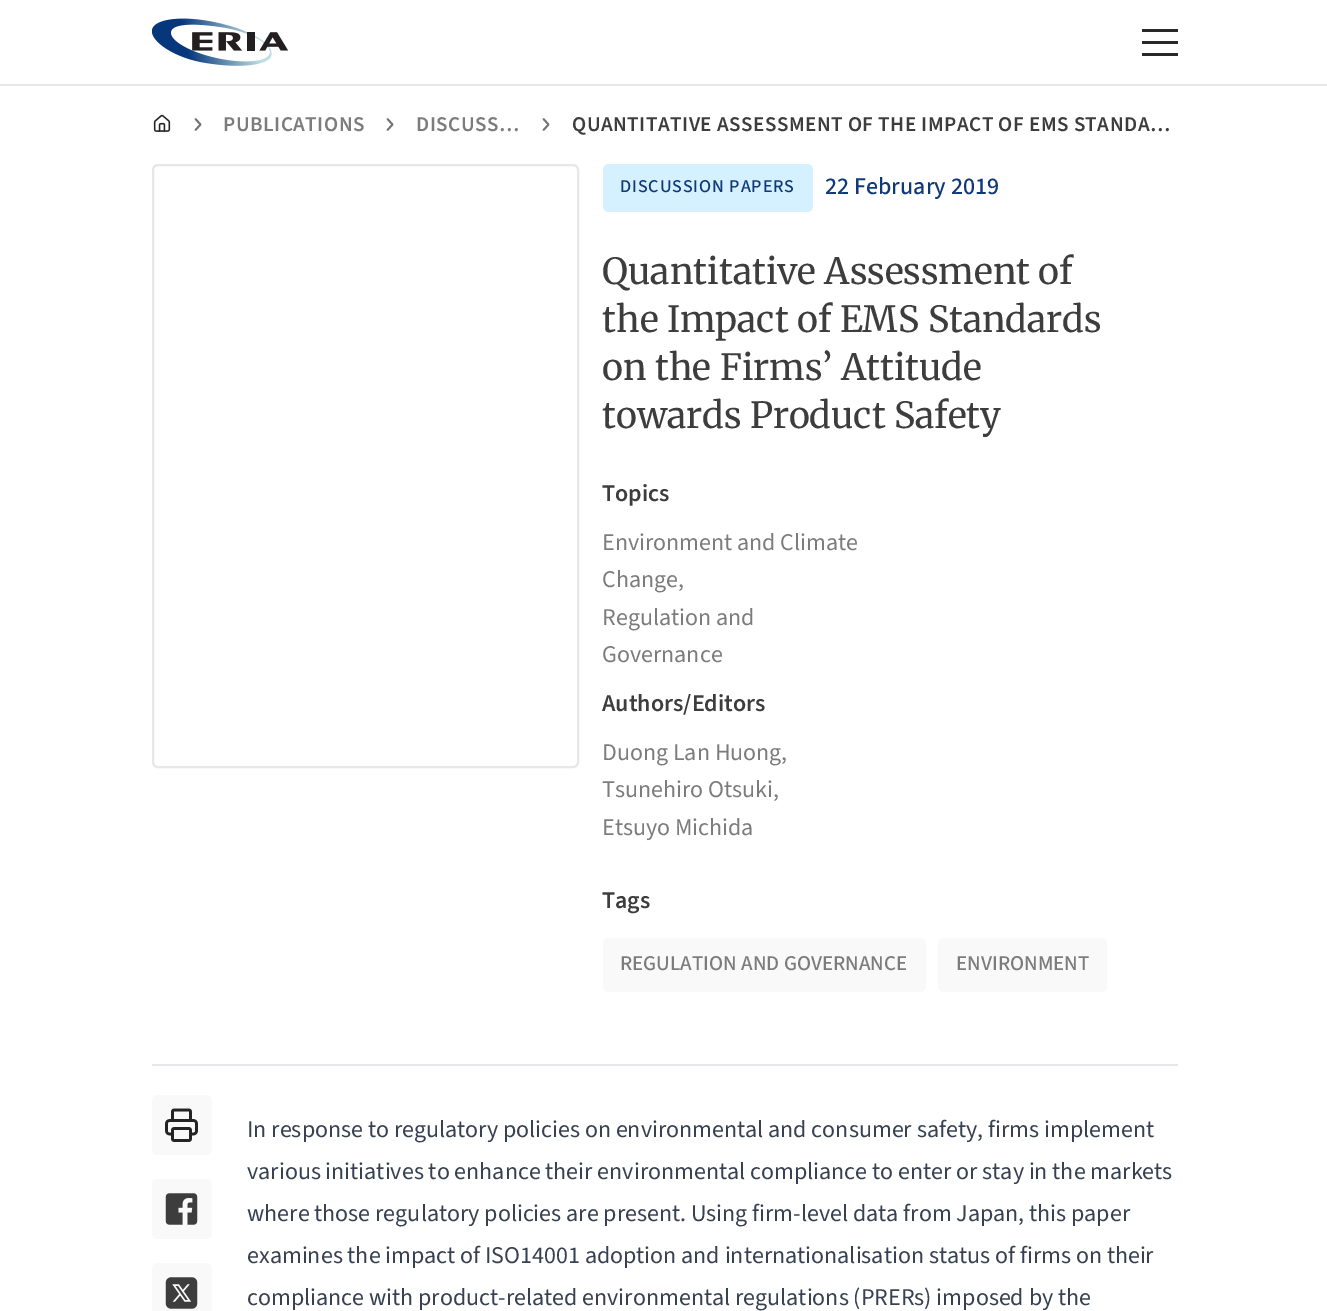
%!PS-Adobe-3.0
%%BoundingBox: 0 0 1327 1311
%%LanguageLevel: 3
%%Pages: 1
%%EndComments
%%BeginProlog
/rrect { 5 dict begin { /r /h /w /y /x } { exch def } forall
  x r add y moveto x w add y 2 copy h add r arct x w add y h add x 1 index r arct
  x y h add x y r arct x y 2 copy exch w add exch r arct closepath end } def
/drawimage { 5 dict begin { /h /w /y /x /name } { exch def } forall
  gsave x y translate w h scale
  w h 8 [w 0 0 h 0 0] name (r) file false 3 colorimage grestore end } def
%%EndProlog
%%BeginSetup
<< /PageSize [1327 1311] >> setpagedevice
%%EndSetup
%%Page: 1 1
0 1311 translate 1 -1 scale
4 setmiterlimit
1 setgray
0 0 1327 1311 rectfill
0.898 0.906 0.922 setrgbcolor
0 84 1327 2 rectfill
(images/1.raw) 152 18 136 48 drawimage
0.161 setgray
1142 29 36 3 rectfill
1142 41 36 3 rectfill
1142 53 36 3 rectfill
(images/2.raw) 153 114 18 18 drawimage
0.451 setgray
1.8 setlinewidth
1 setlinecap
1 setlinejoin
newpath 195.5 130 moveto 200.5 124.5 lineto 195.5 119 lineto stroke
newpath 387.5 130 moveto 392.5 124.5 lineto 387.5 119 lineto stroke
newpath 543.5 130 moveto 548.5 124.5 lineto 543.5 119 lineto stroke
0.898 0.906 0.922 setrgbcolor
2 setlinewidth
0 setlinecap
0 setlinejoin
153 165 425 602 5 rrect stroke
0.835 0.941 1 setrgbcolor
603 164 210 48 6 rrect fill
0.976 setgray
603 938 323 54 6 rrect fill
938 938 169 54 6 rrect fill
0.898 0.906 0.922 setrgbcolor
152 1064 1026 2 rectfill
0.976 setgray
152 1095 60 60 6 rrect fill
(images/3.raw) 165 1108 33 34 drawimage
152 1179 60 60 6 rrect fill
(images/4.raw) 165 1193 33 32 drawimage
152 1263 60 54 6 rrect fill
(images/5.raw) 165 1277 33 32 drawimage
/SourceSans3-SemiBold [21 0 0 -21 0 0] selectfont
0.486 setgray
223 131 moveto 0.52 0 (PUBLICATIONS) ashow
416 131 moveto 0.52 0 (DISCUSS…) ashow
0.239 setgray
572 131 moveto 0.52 0 (QUANTITATIVE ASSESSMENT OF THE IMPACT OF EMS STANDA…) ashow
/SourceSans3-Medium [18 0 0 -18 0 0] selectfont
0.059 0.224 0.475 setrgbcolor
620 192 moveto 0.9 0 (DISCUSSION PAPERS) ashow
/SourceSans3-Medium [24 0 0 -24 0 0] selectfont
825 194 moveto (22 February 2019) show
/Merriweather-Regular [36 0 0 -36 0 0] selectfont
0.239 setgray
602 284 moveto (Quantitative Assessment of) show
602 332 moveto (the Impact of EMS Standards) show
602 380 moveto (on the Firms’ Attitude) show
602 428 moveto (towards Product Safety) show
/SourceSans3-SemiBold [24 0 0 -24 0 0] selectfont
602 501 moveto (Topics) show
/SourceSans3-Regular [24 0 0 -24 0 0] selectfont
0.486 setgray
602 550 moveto (Environment and Climate) show
602 587 moveto (Change,) show
602 625 moveto (Regulation and) show
602 662 moveto (Governance) show
/SourceSans3-SemiBold [24 0 0 -24 0 0] selectfont
0.239 setgray
602 711 moveto (Authors/Editors) show
/SourceSans3-Regular [24 0 0 -24 0 0] selectfont
0.486 setgray
602 760 moveto (Duong Lan Huong,) show
602 797 moveto (Tsunehiro Otsuki,) show
602 835 moveto (Etsuyo Michida) show
/SourceSans3-SemiBold [24 0 0 -24 0 0] selectfont
0.239 setgray
602 908 moveto (Tags) show
/SourceSans3-Medium [21 0 0 -21 0 0] selectfont
0.486 setgray
620 970 moveto (REGULATION AND GOVERNANCE) show
956 970 moveto (ENVIRONMENT) show
/SourceSans3-Regular [24 0 0 -24 0 0] selectfont
0.216 0.255 0.318 setrgbcolor
247 1137 moveto (In response to regulatory policies on environmental and consumer safety, firms implement) show
247 1179 moveto (various initiatives to enhance their environmental compliance to enter or stay in the markets) show
247 1221 moveto (where those regulatory policies are present. Using firm-level data from Japan, this paper) show
247 1263 moveto (examines the impact of ISO14001 adoption and internationalisation status of firms on their) show
247 1305 moveto (compliance with product-related environmental regulations \(PRERs\) imposed by the) show
showpage
%%EOF
